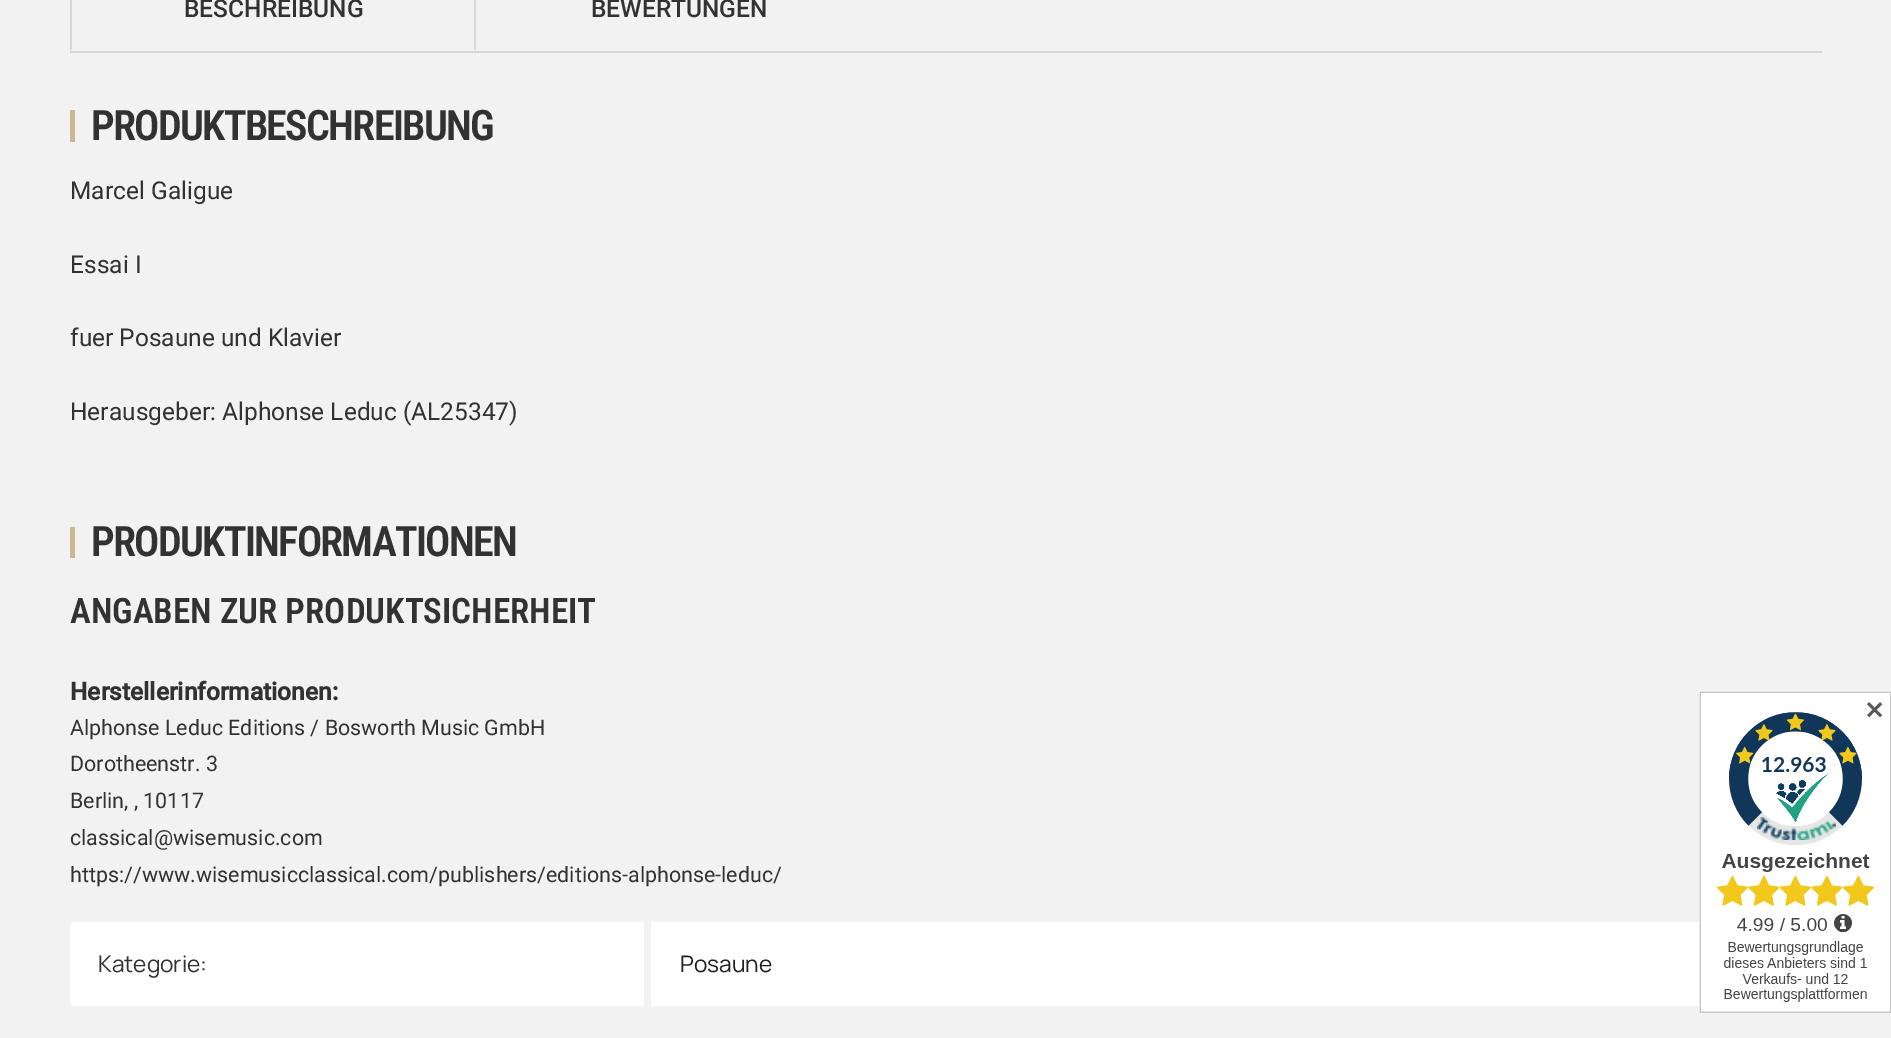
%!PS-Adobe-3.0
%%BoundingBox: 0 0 1891 1038
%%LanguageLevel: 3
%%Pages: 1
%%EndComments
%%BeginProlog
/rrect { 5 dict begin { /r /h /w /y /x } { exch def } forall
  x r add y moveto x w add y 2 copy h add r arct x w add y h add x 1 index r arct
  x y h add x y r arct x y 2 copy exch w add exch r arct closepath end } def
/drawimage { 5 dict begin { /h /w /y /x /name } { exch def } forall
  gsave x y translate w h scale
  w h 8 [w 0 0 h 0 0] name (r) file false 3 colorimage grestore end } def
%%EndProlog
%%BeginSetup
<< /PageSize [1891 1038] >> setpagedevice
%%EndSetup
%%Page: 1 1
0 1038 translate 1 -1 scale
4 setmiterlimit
0.949 setgray
0 0 1891 1038 rectfill
0.843 setgray
70 51 1752 2 rectfill
newpath 476 -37 moveto 476 51 lineto 474 49 lineto 474 -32 lineto closepath fill
newpath 70 51 moveto 70 -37 lineto 72 -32 lineto 72 49 lineto closepath fill
0.8 0.722 0.588 setrgbcolor
70 110 5 32 rectfill
70 527 5 31 rectfill
1 setgray
70 922 578 84 4 rrect fill
651 922 1049 84 rectfill
0.949 setgray
644 922 4 84 rectfill
(images/1.raw) 1699 691 192 322 drawimage
/Roboto-Medium [24.5 0 0 -24.5 0 0] selectfont
0.196 setgray
184 17 moveto (BESCHREIBUNG) show
591 17 moveto (BEWERTUNGEN) show
/RobotoCondensed-SemiBold [42 0 0 -42 0 0] selectfont
91 140 moveto -1.7 0 (PRODUKTBESCHREIBUNG) ashow
/Roboto-Regular [24.5 0 0 -24.5 0 0] selectfont
70 199 moveto (Marcel Galigue) show
70 273 moveto (Essai I) show
70 346 moveto (fuer Posaune und Klavier) show
70 420 moveto (Herausgeber: Alphonse Leduc \(AL25347\)) show
/RobotoCondensed-SemiBold [42 0 0 -42 0 0] selectfont
91 556 moveto -1.7 0 (PRODUKTINFORMATIONEN) ashow
/RobotoCondensed-SemiBold [35 0 0 -35 0 0] selectfont
70 623 moveto (ANGABEN ZUR PRODUKTSICHERHEIT) show
/Roboto-Bold [24.5 0 0 -24.5 0 0] selectfont
70 700 moveto (Herstellerinformationen:) show
/Roboto-Regular [21.45 0 0 -21.45 0 0] selectfont
70 735 moveto (Alphonse Leduc Editions / Bosworth Music GmbH) show
70 771 moveto (Dorotheenstr. 3) show
70 808 moveto (Berlin, , 10117) show
70 845 moveto (classical@wisemusic.com) show
70 882 moveto (https://www.wisemusicclassical.com/publishers/editions-alphonse-leduc/) show
/Manrope-ExtraLight [22.75 0 0 -22.75 0 0] selectfont
98 972 moveto (Kategorie:) show
0.133 setgray
680 972 moveto (Posaune) show
/DejaVuSans-Bold [24.5 0 0 -24.5 0 0] selectfont
0.349 setgray
1864 719 moveto (✕) show
showpage
%%EOF
